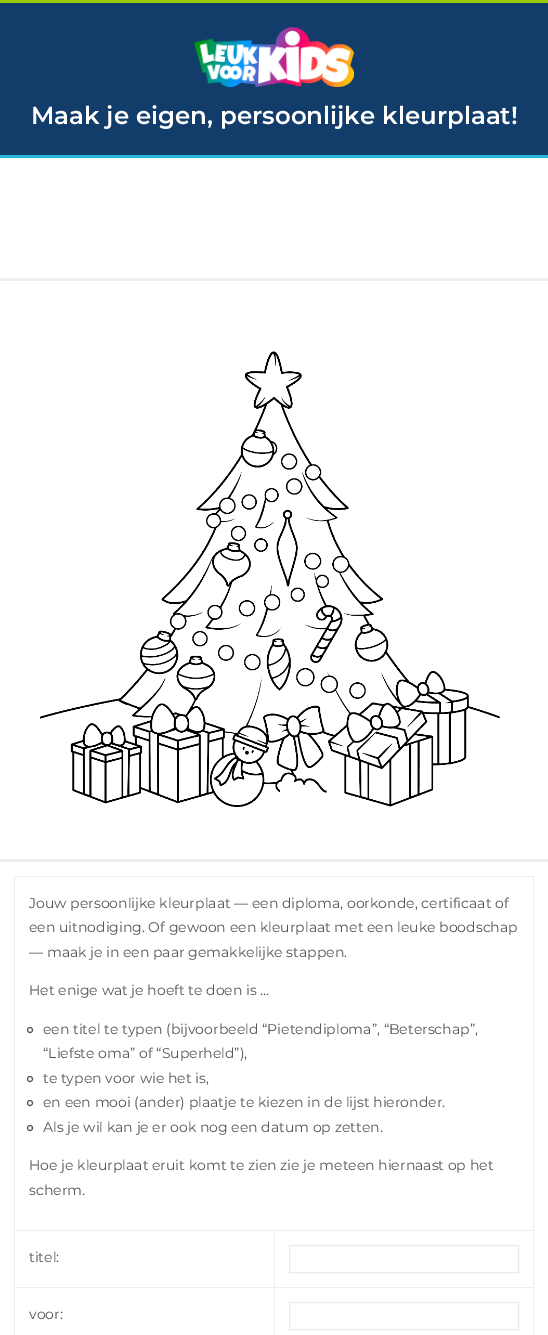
%!PS-Adobe-3.0
%%BoundingBox: 0 0 548 1335
%%LanguageLevel: 3
%%Pages: 1
%%EndComments
%%BeginProlog
/drawimage { 5 dict begin { /h /w /y /x /name } { exch def } forall
  gsave x y translate w h scale
  w h 8 [w 0 0 h 0 0] name (r) file false 3 colorimage grestore end } def
%%EndProlog
%%BeginSetup
<< /PageSize [548 1335] >> setpagedevice
%%EndSetup
%%Page: 1 1
0 1335 translate 1 -1 scale
4 setmiterlimit
1 setgray
0 0 548 1335 rectfill
0.071 0.235 0.412 setrgbcolor
0 3 548 152 rectfill
0.6 0.8 0 setrgbcolor
0 0 548 3 rectfill
0.157 0.718 0.875 setrgbcolor
0 155 548 3 rectfill
(images/1.raw) 194 27 160 60 drawimage
0.933 setgray
0 278 548 3 rectfill
(images/2.raw) 39 351 461 456 drawimage
0 859 548 3 rectfill
14 876 520 1 rectfill
274 1230 260 1 rectfill
274 1287 260 1 rectfill
533 1287 1 48 rectfill
533 1230 1 58 rectfill
533 876 1 355 rectfill
274 1287 1 48 rectfill
14 1287 261 1 rectfill
274 1230 1 58 rectfill
14 1230 261 1 rectfill
14 1287 1 48 rectfill
14 1230 1 58 rectfill
14 876 1 355 rectfill
0.333 setgray
newpath 30 1030 2.5 0 360 arc closepath stroke
newpath 30 1079 2.5 0 360 arc closepath stroke
newpath 30 1103 2.5 0 360 arc closepath stroke
newpath 30 1128 2.5 0 360 arc closepath stroke
0.914 0.925 0.937 setrgbcolor
289.5 1245.5 229 27 rectstroke
289.5 1302.5 229 27 rectstroke
/Montserrat-SemiBold [24.5 0 0 -24.5 0 0] selectfont
1 setgray
31 124 moveto (Maak je eigen, persoonlijke kleurplaat!) show
/Montserrat-Regular [14 0 0 -14 0 0] selectfont
0.333 setgray
29 908 moveto (Jouw persoonlijke kleurplaat — een diploma, oorkonde, certificaat of) show
29 932 moveto (een uitnodiging. Of gewoon een kleurplaat met een leuke boodschap) show
29 957 moveto (— maak je in een paar gemakkelijke stappen.) show
29 995 moveto (Het enige wat je hoeft te doen is …) show
43 1034 moveto (een titel te typen \(bijvoorbeeld “Pietendiploma”, “Beterschap”,) show
43 1058 moveto (“Liefste oma” of “Superheld”\),) show
43 1083 moveto (te typen voor wie het is,) show
43 1107 moveto (en een mooi \(ander\) plaatje te kiezen in de lijst hieronder.) show
43 1132 moveto (Als je wil kan je er ook nog een datum op zetten.) show
29 1170 moveto (Hoe je kleurplaat eruit komt te zien zie je meteen hiernaast op het) show
29 1195 moveto (scherm.) show
29 1262 moveto (titel:) show
29 1319 moveto (voor:) show
showpage
%%EOF
